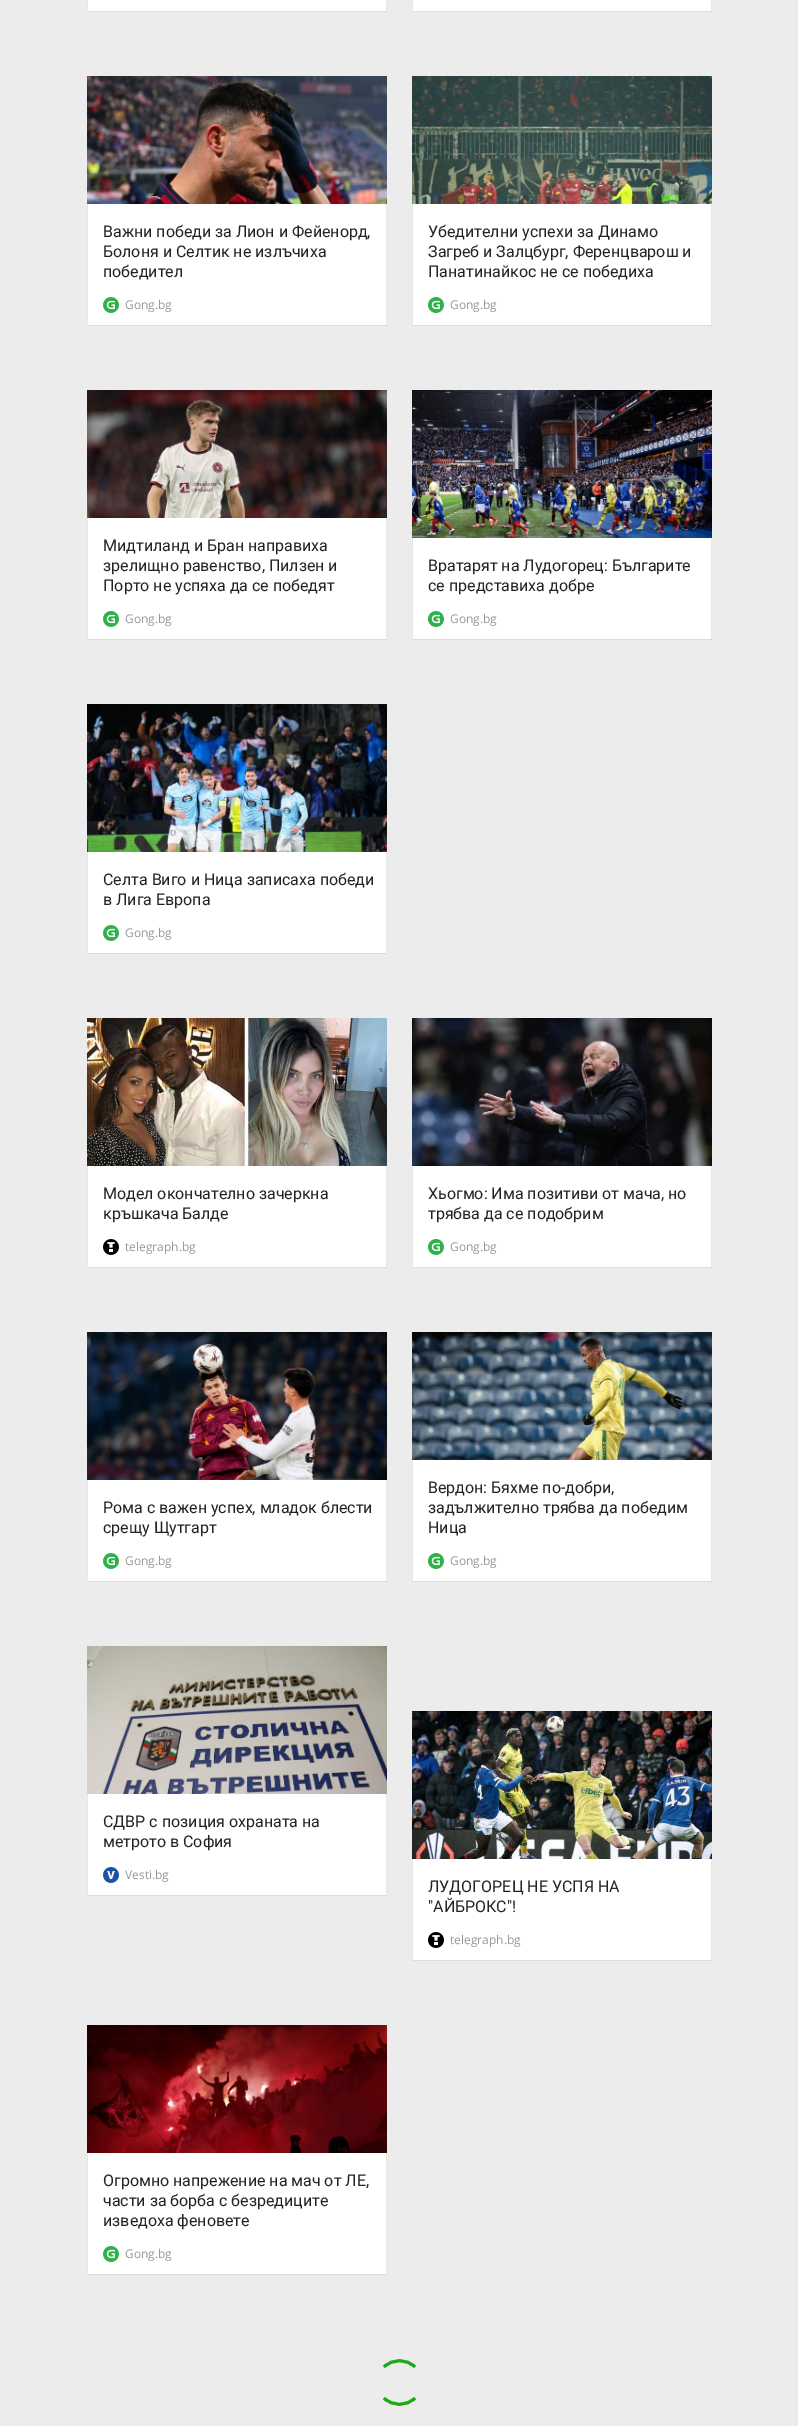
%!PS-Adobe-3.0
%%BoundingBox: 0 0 798 2426
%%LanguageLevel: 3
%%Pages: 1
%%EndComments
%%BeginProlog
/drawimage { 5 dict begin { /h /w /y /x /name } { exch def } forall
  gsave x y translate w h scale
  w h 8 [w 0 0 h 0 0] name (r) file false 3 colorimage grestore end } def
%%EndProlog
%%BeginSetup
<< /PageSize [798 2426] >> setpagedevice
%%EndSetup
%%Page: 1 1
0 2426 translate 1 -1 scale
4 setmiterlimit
0.925 setgray
0 0 798 2426 rectfill
1 setgray
88 0 298 11 rectfill
0.91 setgray
386 0 1 12 rectfill
0.863 setgray
87 11 300 1 rectfill
0.91 setgray
87 0 1 12 rectfill
1 setgray
413 0 298 11 rectfill
0.91 setgray
711 0 1 12 rectfill
0.863 setgray
412 11 300 1 rectfill
0.91 setgray
412 0 1 12 rectfill
(images/1.raw) 87 76 300 128 drawimage
1 setgray
88 204 298 121 rectfill
0.91 setgray
386 204 1 122 rectfill
0.863 setgray
87 325 300 1 rectfill
0.91 setgray
87 204 1 122 rectfill
(images/2.raw) 103 297 16 16 drawimage
(images/3.raw) 412 76 300 128 drawimage
1 setgray
413 204 298 121 rectfill
0.91 setgray
711 204 1 122 rectfill
0.863 setgray
412 325 300 1 rectfill
0.91 setgray
412 204 1 122 rectfill
(images/2.raw) 428 297 16 16 drawimage
(images/4.raw) 87 390 300 128 drawimage
1 setgray
88 518 298 121 rectfill
0.91 setgray
386 518 1 122 rectfill
0.863 setgray
87 639 300 1 rectfill
0.91 setgray
87 518 1 122 rectfill
(images/2.raw) 103 611 16 16 drawimage
(images/5.raw) 412 390 300 148 drawimage
1 setgray
413 538 298 101 rectfill
0.91 setgray
711 538 1 102 rectfill
0.863 setgray
412 639 300 1 rectfill
0.91 setgray
412 538 1 102 rectfill
(images/2.raw) 428 611 16 16 drawimage
(images/6.raw) 87 704 300 148 drawimage
1 setgray
88 852 298 101 rectfill
0.91 setgray
386 852 1 102 rectfill
0.863 setgray
87 953 300 1 rectfill
0.91 setgray
87 852 1 102 rectfill
(images/2.raw) 103 925 16 16 drawimage
(images/7.raw) 87 1018 300 148 drawimage
1 setgray
88 1166 298 101 rectfill
0.91 setgray
386 1166 1 102 rectfill
0.863 setgray
87 1267 300 1 rectfill
0.91 setgray
87 1166 1 102 rectfill
(images/8.raw) 103 1239 16 16 drawimage
(images/9.raw) 412 1018 300 148 drawimage
1 setgray
413 1166 298 101 rectfill
0.91 setgray
711 1166 1 102 rectfill
0.863 setgray
412 1267 300 1 rectfill
0.91 setgray
412 1166 1 102 rectfill
(images/2.raw) 428 1239 16 16 drawimage
(images/10.raw) 87 1332 300 148 drawimage
1 setgray
88 1480 298 101 rectfill
0.91 setgray
386 1480 1 102 rectfill
0.863 setgray
87 1581 300 1 rectfill
0.91 setgray
87 1480 1 102 rectfill
(images/2.raw) 103 1553 16 16 drawimage
(images/11.raw) 412 1332 300 128 drawimage
1 setgray
413 1460 298 121 rectfill
0.91 setgray
711 1460 1 122 rectfill
0.863 setgray
412 1581 300 1 rectfill
0.91 setgray
412 1460 1 122 rectfill
(images/2.raw) 428 1553 16 16 drawimage
(images/12.raw) 87 1646 300 148 drawimage
1 setgray
88 1794 298 101 rectfill
0.91 setgray
386 1794 1 102 rectfill
0.863 setgray
87 1895 300 1 rectfill
0.91 setgray
87 1794 1 102 rectfill
(images/13.raw) 103 1867 16 16 drawimage
(images/14.raw) 412 1711 300 148 drawimage
1 setgray
413 1859 298 101 rectfill
0.91 setgray
711 1859 1 102 rectfill
0.863 setgray
412 1960 300 1 rectfill
0.91 setgray
412 1859 1 102 rectfill
(images/8.raw) 428 1932 16 16 drawimage
(images/15.raw) 87 2025 300 128 drawimage
1 setgray
88 2153 298 121 rectfill
0.91 setgray
386 2153 1 122 rectfill
0.863 setgray
87 2274 300 1 rectfill
0.91 setgray
87 2153 1 122 rectfill
(images/2.raw) 103 2246 16 16 drawimage
0.114 0.663 0.094 setrgbcolor
3 setlinewidth
newpath 384 2367 moveto 392.5 2358.5 406.5 2358.5 415 2367 curveto 415 2398 moveto 406.5 2406.5 392.5 2406.5 384 2398 curveto stroke
/Roboto-Regular [16 0 0 -16 0 0] selectfont
0.137 setgray
103 237 moveto (Важни победи за Лион и Фейенорд,) show
103 257 moveto (Болоня и Селтик не излъчиха) show
103 277 moveto (победител) show
/OpenSans-Regular [12 0 0 -12 0 0] selectfont
0.596 setgray
125 309 moveto (Gong.bg) show
/Roboto-Regular [16 0 0 -16 0 0] selectfont
0.137 setgray
428 237 moveto (Убедителни успехи за Динамо) show
428 257 moveto (Загреб и Залцбург, Ференцварош и) show
428 277 moveto (Панатинайкос не се победиха) show
/OpenSans-Regular [12 0 0 -12 0 0] selectfont
0.596 setgray
450 309 moveto (Gong.bg) show
/Roboto-Regular [16 0 0 -16 0 0] selectfont
0.137 setgray
103 551 moveto (Мидтиланд и Бран направиха) show
103 571 moveto (зрелищно равенство, Пилзен и) show
103 591 moveto (Порто не успяха да се победят) show
/OpenSans-Regular [12 0 0 -12 0 0] selectfont
0.596 setgray
125 623 moveto (Gong.bg) show
/Roboto-Regular [16 0 0 -16 0 0] selectfont
0.137 setgray
428 571 moveto (Вратарят на Лудогорец: Българите) show
428 591 moveto (се представиха добре) show
/OpenSans-Regular [12 0 0 -12 0 0] selectfont
0.596 setgray
450 623 moveto (Gong.bg) show
/Roboto-Regular [16 0 0 -16 0 0] selectfont
0.137 setgray
103 885 moveto (Селта Виго и Ница записаха победи) show
103 905 moveto (в Лига Европа) show
/OpenSans-Regular [12 0 0 -12 0 0] selectfont
0.596 setgray
125 937 moveto (Gong.bg) show
/Roboto-Regular [16 0 0 -16 0 0] selectfont
0.137 setgray
103 1199 moveto (Модел окончателно зачеркна) show
103 1219 moveto (кръшкача Балде) show
/OpenSans-Regular [12 0 0 -12 0 0] selectfont
0.596 setgray
125 1251 moveto (telegraph.bg) show
/Roboto-Regular [16 0 0 -16 0 0] selectfont
0.137 setgray
428 1199 moveto (Хьогмо: Има позитиви от мача, но) show
428 1219 moveto (трябва да се подобрим) show
/OpenSans-Regular [12 0 0 -12 0 0] selectfont
0.596 setgray
450 1251 moveto (Gong.bg) show
/Roboto-Regular [16 0 0 -16 0 0] selectfont
0.137 setgray
103 1513 moveto (Рома с важен успех, младок блести) show
103 1533 moveto (срещу Щутгарт) show
/OpenSans-Regular [12 0 0 -12 0 0] selectfont
0.596 setgray
125 1565 moveto (Gong.bg) show
/Roboto-Regular [16 0 0 -16 0 0] selectfont
0.137 setgray
428 1493 moveto (Вердон: Бяхме по-добри,) show
428 1513 moveto (задължително трябва да победим) show
428 1533 moveto (Ница) show
/OpenSans-Regular [12 0 0 -12 0 0] selectfont
0.596 setgray
450 1565 moveto (Gong.bg) show
/Roboto-Regular [16 0 0 -16 0 0] selectfont
0.137 setgray
103 1827 moveto (СДВР с позиция охраната на) show
103 1847 moveto (метрото в София) show
/OpenSans-Regular [12 0 0 -12 0 0] selectfont
0.596 setgray
125 1879 moveto (Vesti.bg) show
/Roboto-Regular [16 0 0 -16 0 0] selectfont
0.137 setgray
428 1892 moveto (ЛУДОГОРЕЦ НЕ УСПЯ НА) show
428 1912 moveto ("АЙБРОКС"!) show
/OpenSans-Regular [12 0 0 -12 0 0] selectfont
0.596 setgray
450 1944 moveto (telegraph.bg) show
/Roboto-Regular [16 0 0 -16 0 0] selectfont
0.137 setgray
103 2186 moveto (Огромно напрежение на мач от ЛЕ,) show
103 2206 moveto (части за борба с безредиците) show
103 2226 moveto (изведоха феновете) show
/OpenSans-Regular [12 0 0 -12 0 0] selectfont
0.596 setgray
125 2258 moveto (Gong.bg) show
showpage
%%EOF
